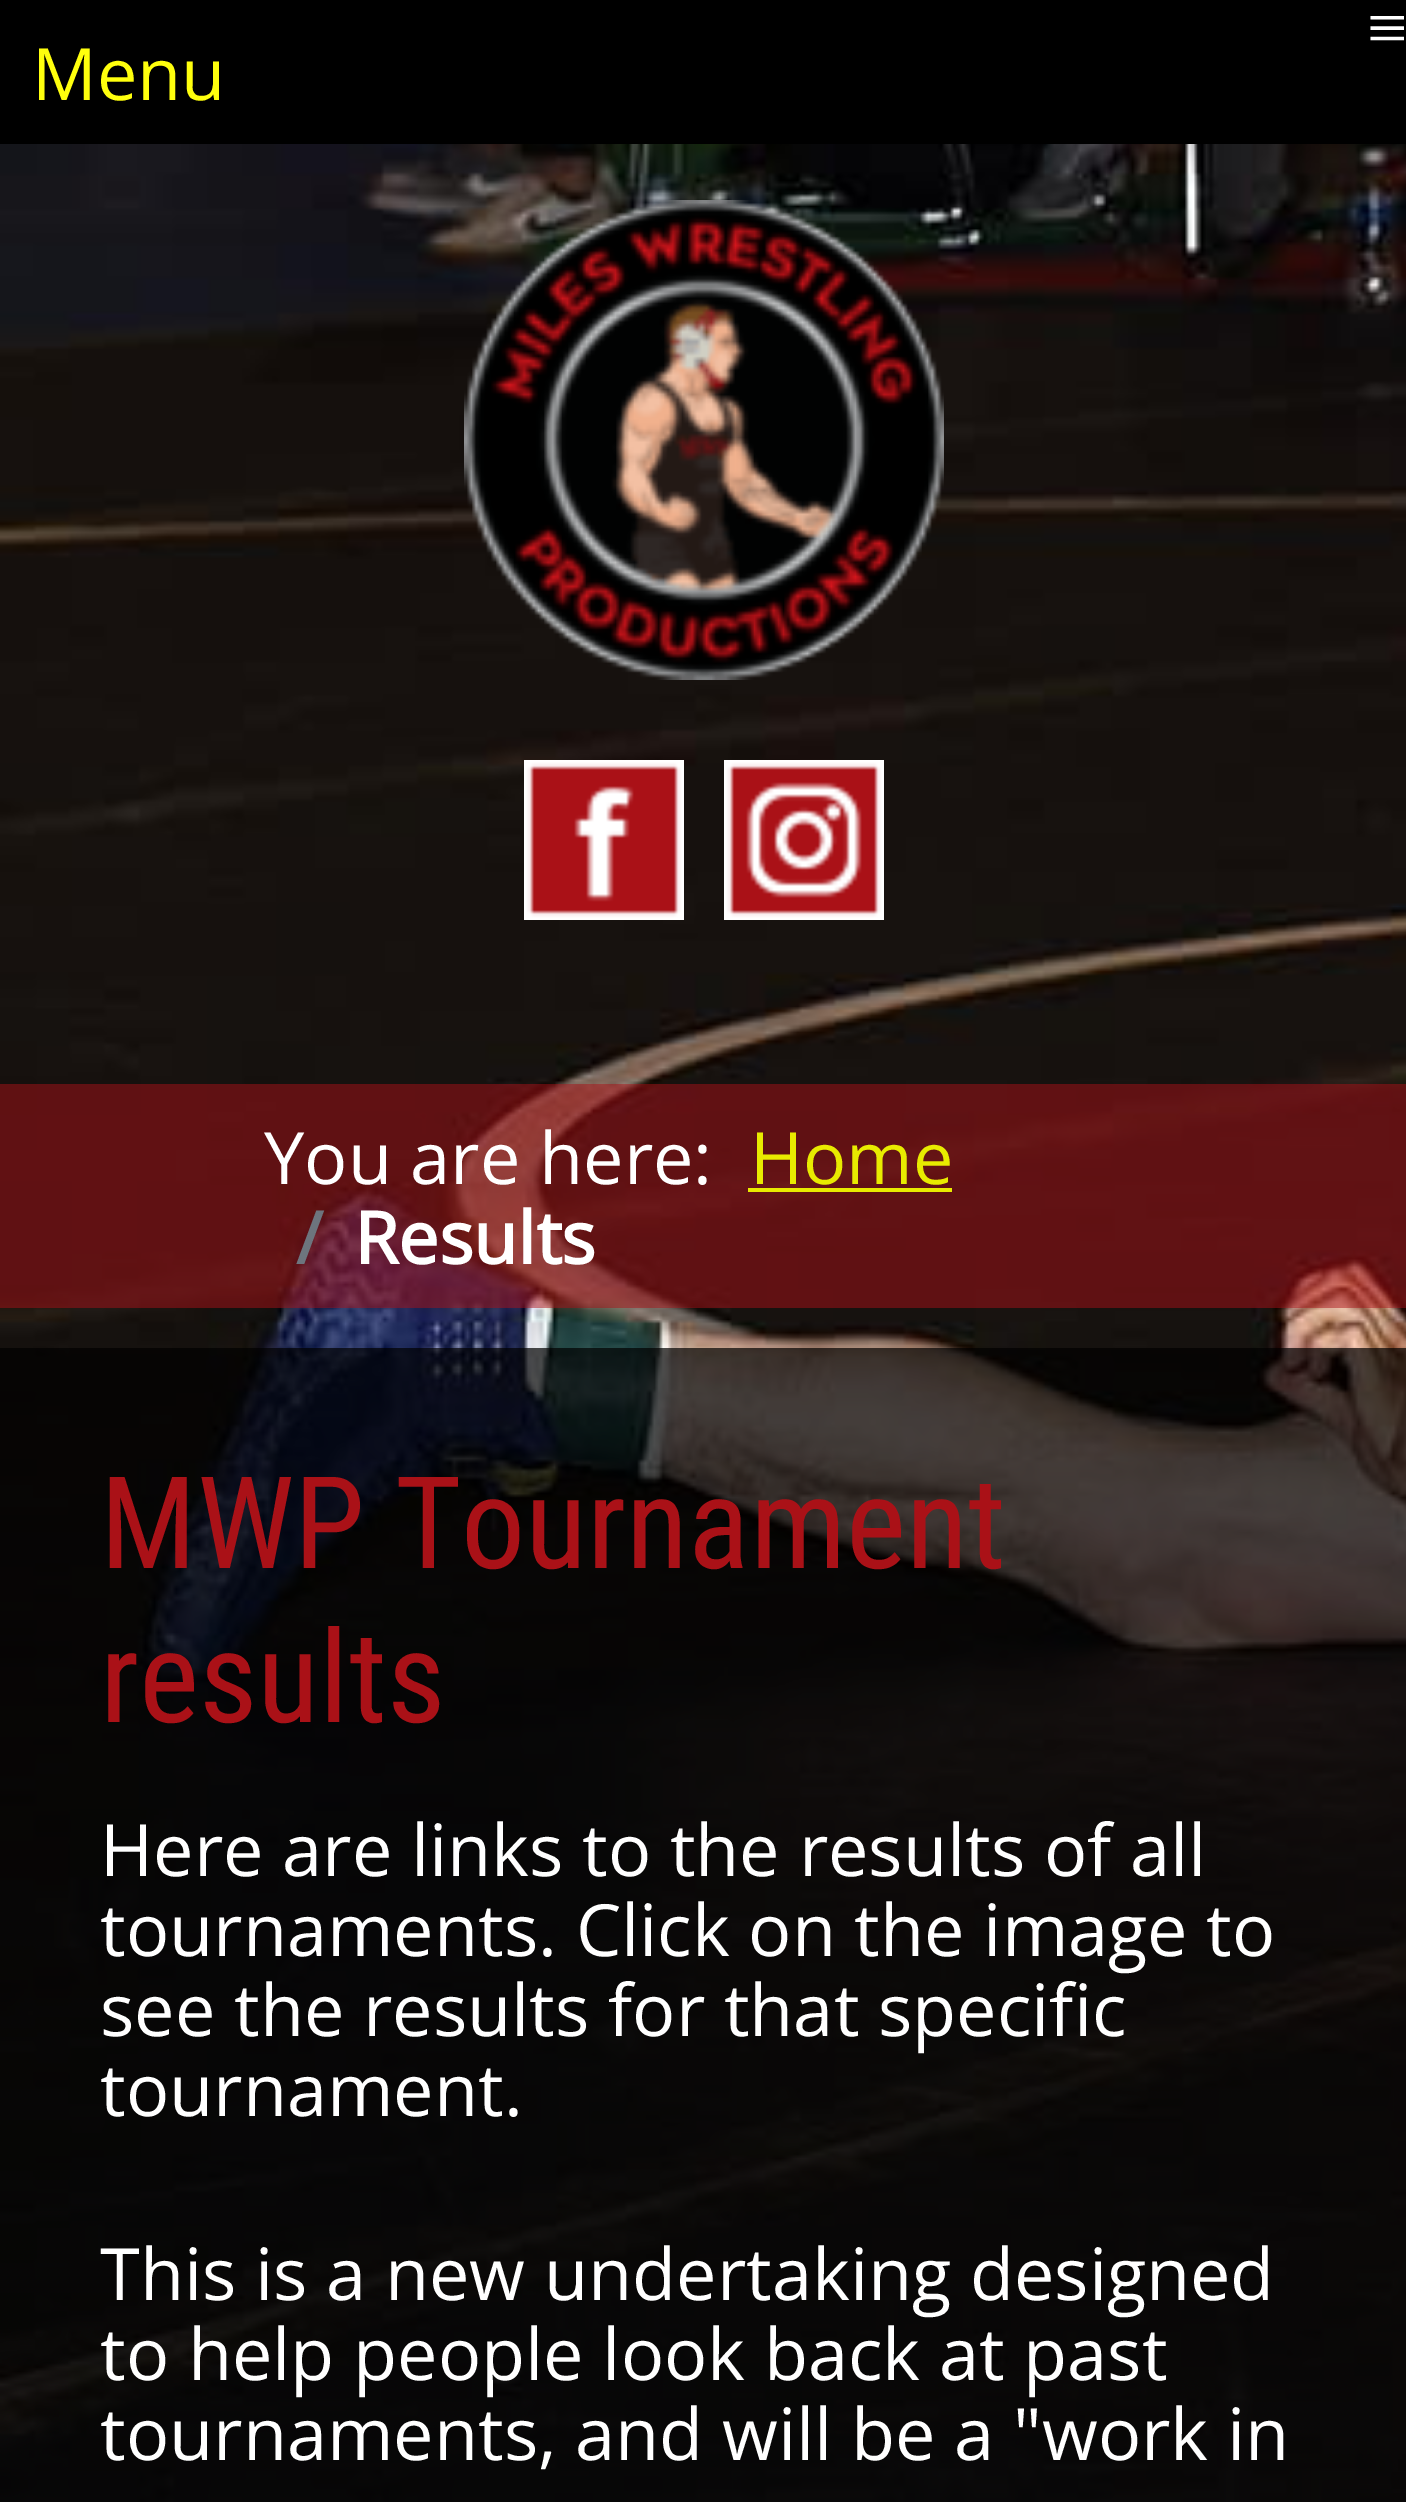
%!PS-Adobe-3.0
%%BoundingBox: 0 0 1406 2502
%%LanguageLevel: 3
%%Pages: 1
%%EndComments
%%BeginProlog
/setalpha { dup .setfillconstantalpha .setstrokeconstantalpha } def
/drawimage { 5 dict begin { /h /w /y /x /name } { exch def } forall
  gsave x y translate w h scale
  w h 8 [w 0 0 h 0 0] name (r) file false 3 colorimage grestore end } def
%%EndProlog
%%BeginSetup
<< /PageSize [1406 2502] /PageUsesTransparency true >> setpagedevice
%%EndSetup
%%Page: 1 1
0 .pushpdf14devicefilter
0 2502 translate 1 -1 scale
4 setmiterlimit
1 setgray
0 0 1406 2502 rectfill
(images/1.raw) 0 144 1406 2358 drawimage
0 setgray
0 0 1406 144 rectfill
(images/2.raw) 464 200 480 480 drawimage
(images/3.raw) 524 760 160 160 drawimage
(images/4.raw) 724 760 160 160 drawimage
0.5 setalpha
0.667 0.067 0.09 setrgbcolor
0 1084 1406 224 rectfill
1 setalpha
0.91 0.922 0 setrgbcolor
748 1188 204 4 rectfill
0.7 setalpha
0 setgray
0 1348 1406 1154 rectfill
/LiberationSerif-Regular [72 0 0 -72 0 0] selectfont
1 setalpha
1 setgray
1367 52 moveto (≡) show
/OpenSans-Regular [72 0 0 -72 0 0] selectfont
1 1 0.051 setrgbcolor
32 100 moveto (Menu) show
1 setgray
264 1184 moveto (You are here:) show
0.91 0.922 0 setrgbcolor
750 1184 moveto (Home) show
/OpenSans-Bold [72 0 0 -72 0 0] selectfont
0.427 0.459 0.494 setrgbcolor
296 1264 moveto (/) show
1 setgray
354 1264 moveto (Results) show
/RobotoCondensed-Regular [128 0 0 -128 0 0] selectfont
0.667 0.067 0.09 setrgbcolor
100 1568 moveto (MWP Tournament) show
100 1722 moveto (results) show
/OpenSans-Regular [72 0 0 -72 0 0] selectfont
1 setgray
100 1876 moveto (Here are links to the results of all) show
100 1956 moveto (tournaments. Click on the image to) show
100 2036 moveto (see the results for that specific) show
100 2116 moveto (tournament.) show
100 2300 moveto (This is a new undertaking designed) show
100 2380 moveto (to help people look back at past) show
100 2460 moveto (tournaments, and will be a "work in) show
.poppdf14devicefilter showpage
%%EOF
